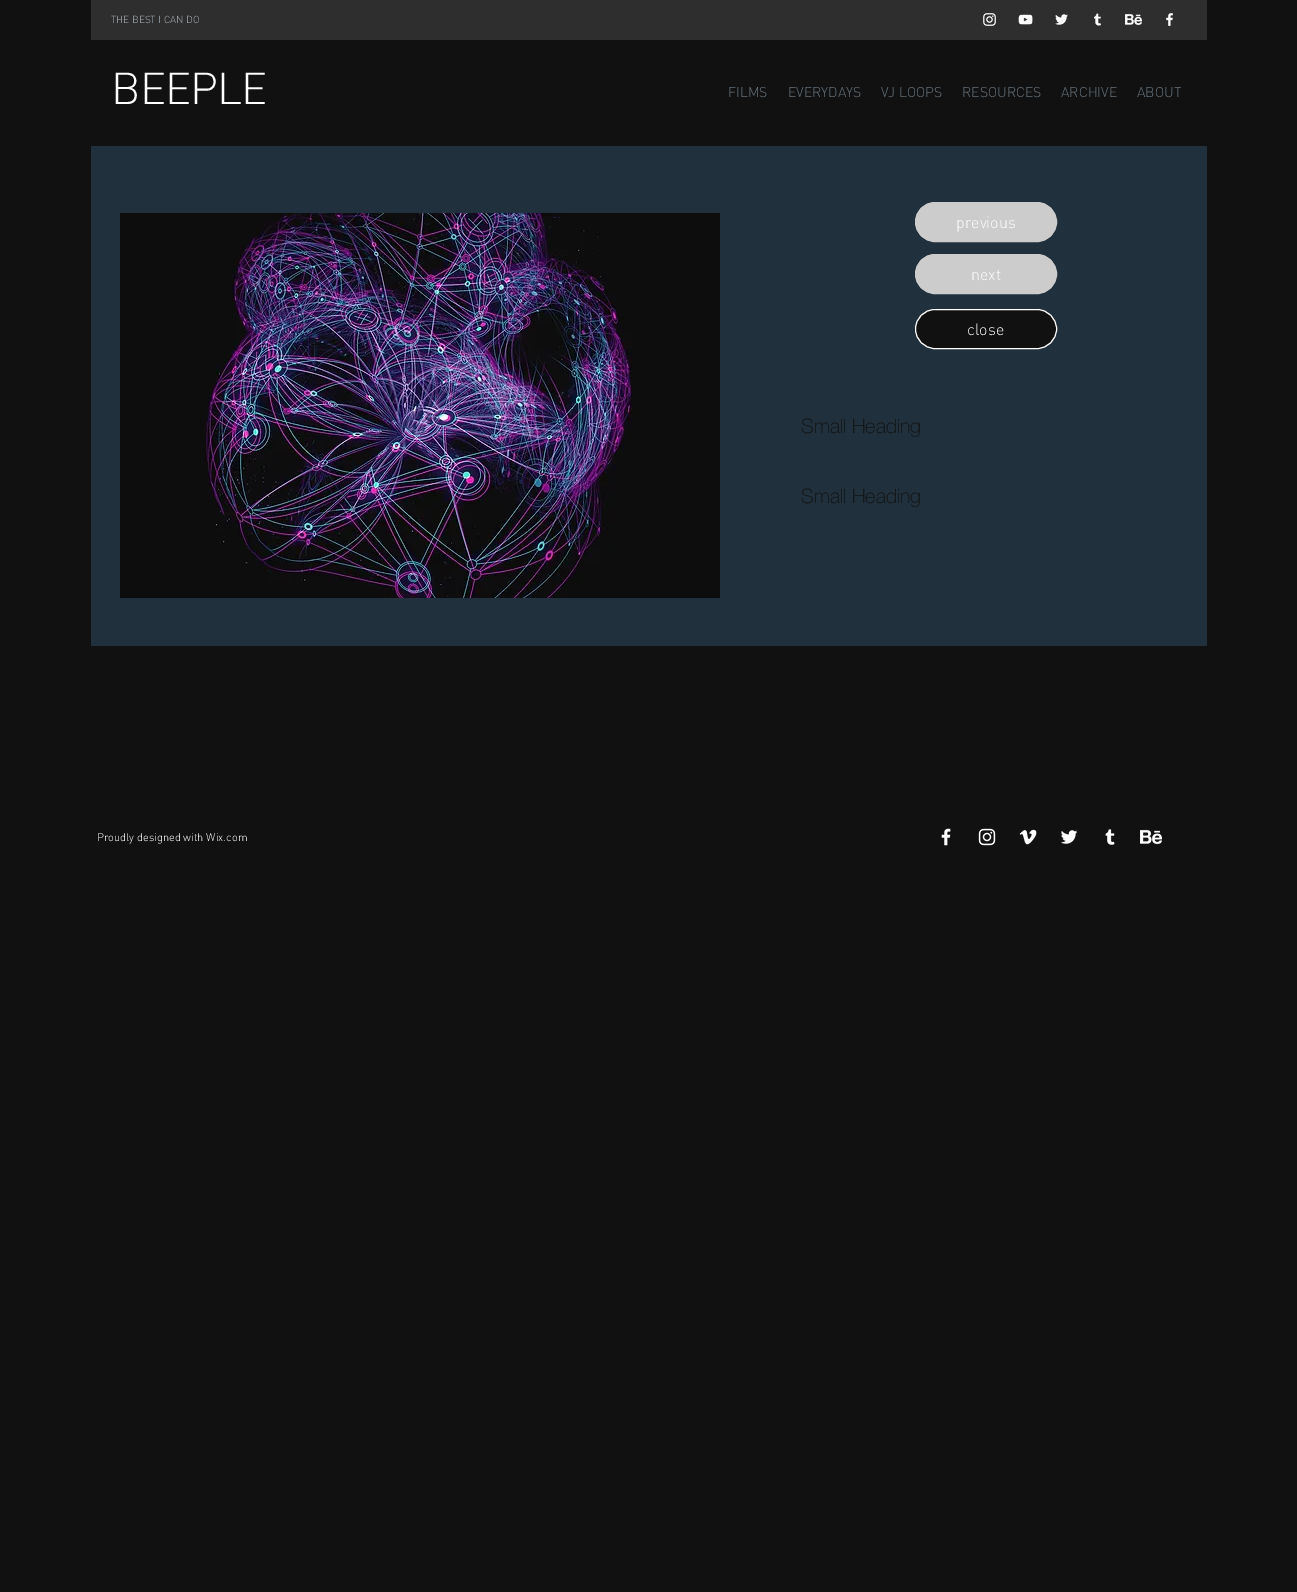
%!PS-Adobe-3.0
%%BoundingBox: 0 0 1297 1592
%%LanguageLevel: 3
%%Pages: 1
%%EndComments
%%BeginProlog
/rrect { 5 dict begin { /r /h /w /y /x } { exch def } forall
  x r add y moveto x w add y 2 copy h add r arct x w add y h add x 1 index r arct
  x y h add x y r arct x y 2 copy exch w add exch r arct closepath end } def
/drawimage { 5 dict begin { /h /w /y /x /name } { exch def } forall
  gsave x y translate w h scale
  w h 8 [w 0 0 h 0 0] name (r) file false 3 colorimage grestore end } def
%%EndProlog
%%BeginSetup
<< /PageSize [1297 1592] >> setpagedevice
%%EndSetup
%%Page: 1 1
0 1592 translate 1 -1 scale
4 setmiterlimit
0.067 setgray
0 0 1297 1592 rectfill
0.184 0.18 0.18 setrgbcolor
91 0 1116 40 rectfill
(images/1.raw) 983 13 13 13 drawimage
(images/2.raw) 1018 14 15 11 drawimage
(images/3.raw) 1055 14 13 11 drawimage
(images/4.raw) 1094 13 7 13 drawimage
(images/5.raw) 1125 14 17 11 drawimage
(images/6.raw) 1166 13 7 13 drawimage
0.125 0.188 0.235 setrgbcolor
91 146 1116 500 rectfill
(images/7.raw) 120 213 600 385 drawimage
0.8 setgray
915.5 202.5 141 39 19.5 rrect gsave fill grestore
stroke
915.5 254.5 141 39 19.5 rrect gsave fill grestore
stroke
0.067 setgray
915.5 309.5 141 39 19.5 rrect gsave fill grestore
1 setgray
stroke
(images/8.raw) 941 828 10 18 drawimage
(images/9.raw) 978 828 18 18 drawimage
(images/10.raw) 1019 829 18 16 drawimage
(images/11.raw) 1061 830 17 14 drawimage
(images/12.raw) 1105 829 10 16 drawimage
(images/13.raw) 1140 829 22 16 drawimage
/DIN-Light [10 0 0 -10 0 0] selectfont
0.639 0.671 0.69 setrgbcolor
111 23 moveto (THE BEST I CAN DO) show
/DIN-Light [44 0 0 -44 0 0] selectfont
1 setgray
111 104 moveto -1 0 (BEEPLE) ashow
/DIN-Light [14 0 0 -14 0 0] selectfont
0.4 0.451 0.486 setrgbcolor
728 97 moveto (FILMS) show
788 97 moveto (EVERYDAYS) show
881 97 moveto (VJ LOOPS) show
962 97 moveto (RESOURCES) show
1061 97 moveto (ARCHIVE) show
1137 97 moveto (ABOUT) show
/DIN-Light [16 0 0 -16 0 0] selectfont
1 setgray
956 228 moveto (previous) show
971 280 moveto (next) show
967 335 moveto (close) show
/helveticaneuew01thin-Thin [20 0 0 -20 0 0] selectfont
0.067 setgray
801 433 moveto (Small Heading) show
801 503 moveto (Small Heading) show
/DIN-Light [11 0 0 -11 0 0] selectfont
1 setgray
97 841 moveto (Proudly designed with Wix.com) show
showpage
%%EOF
